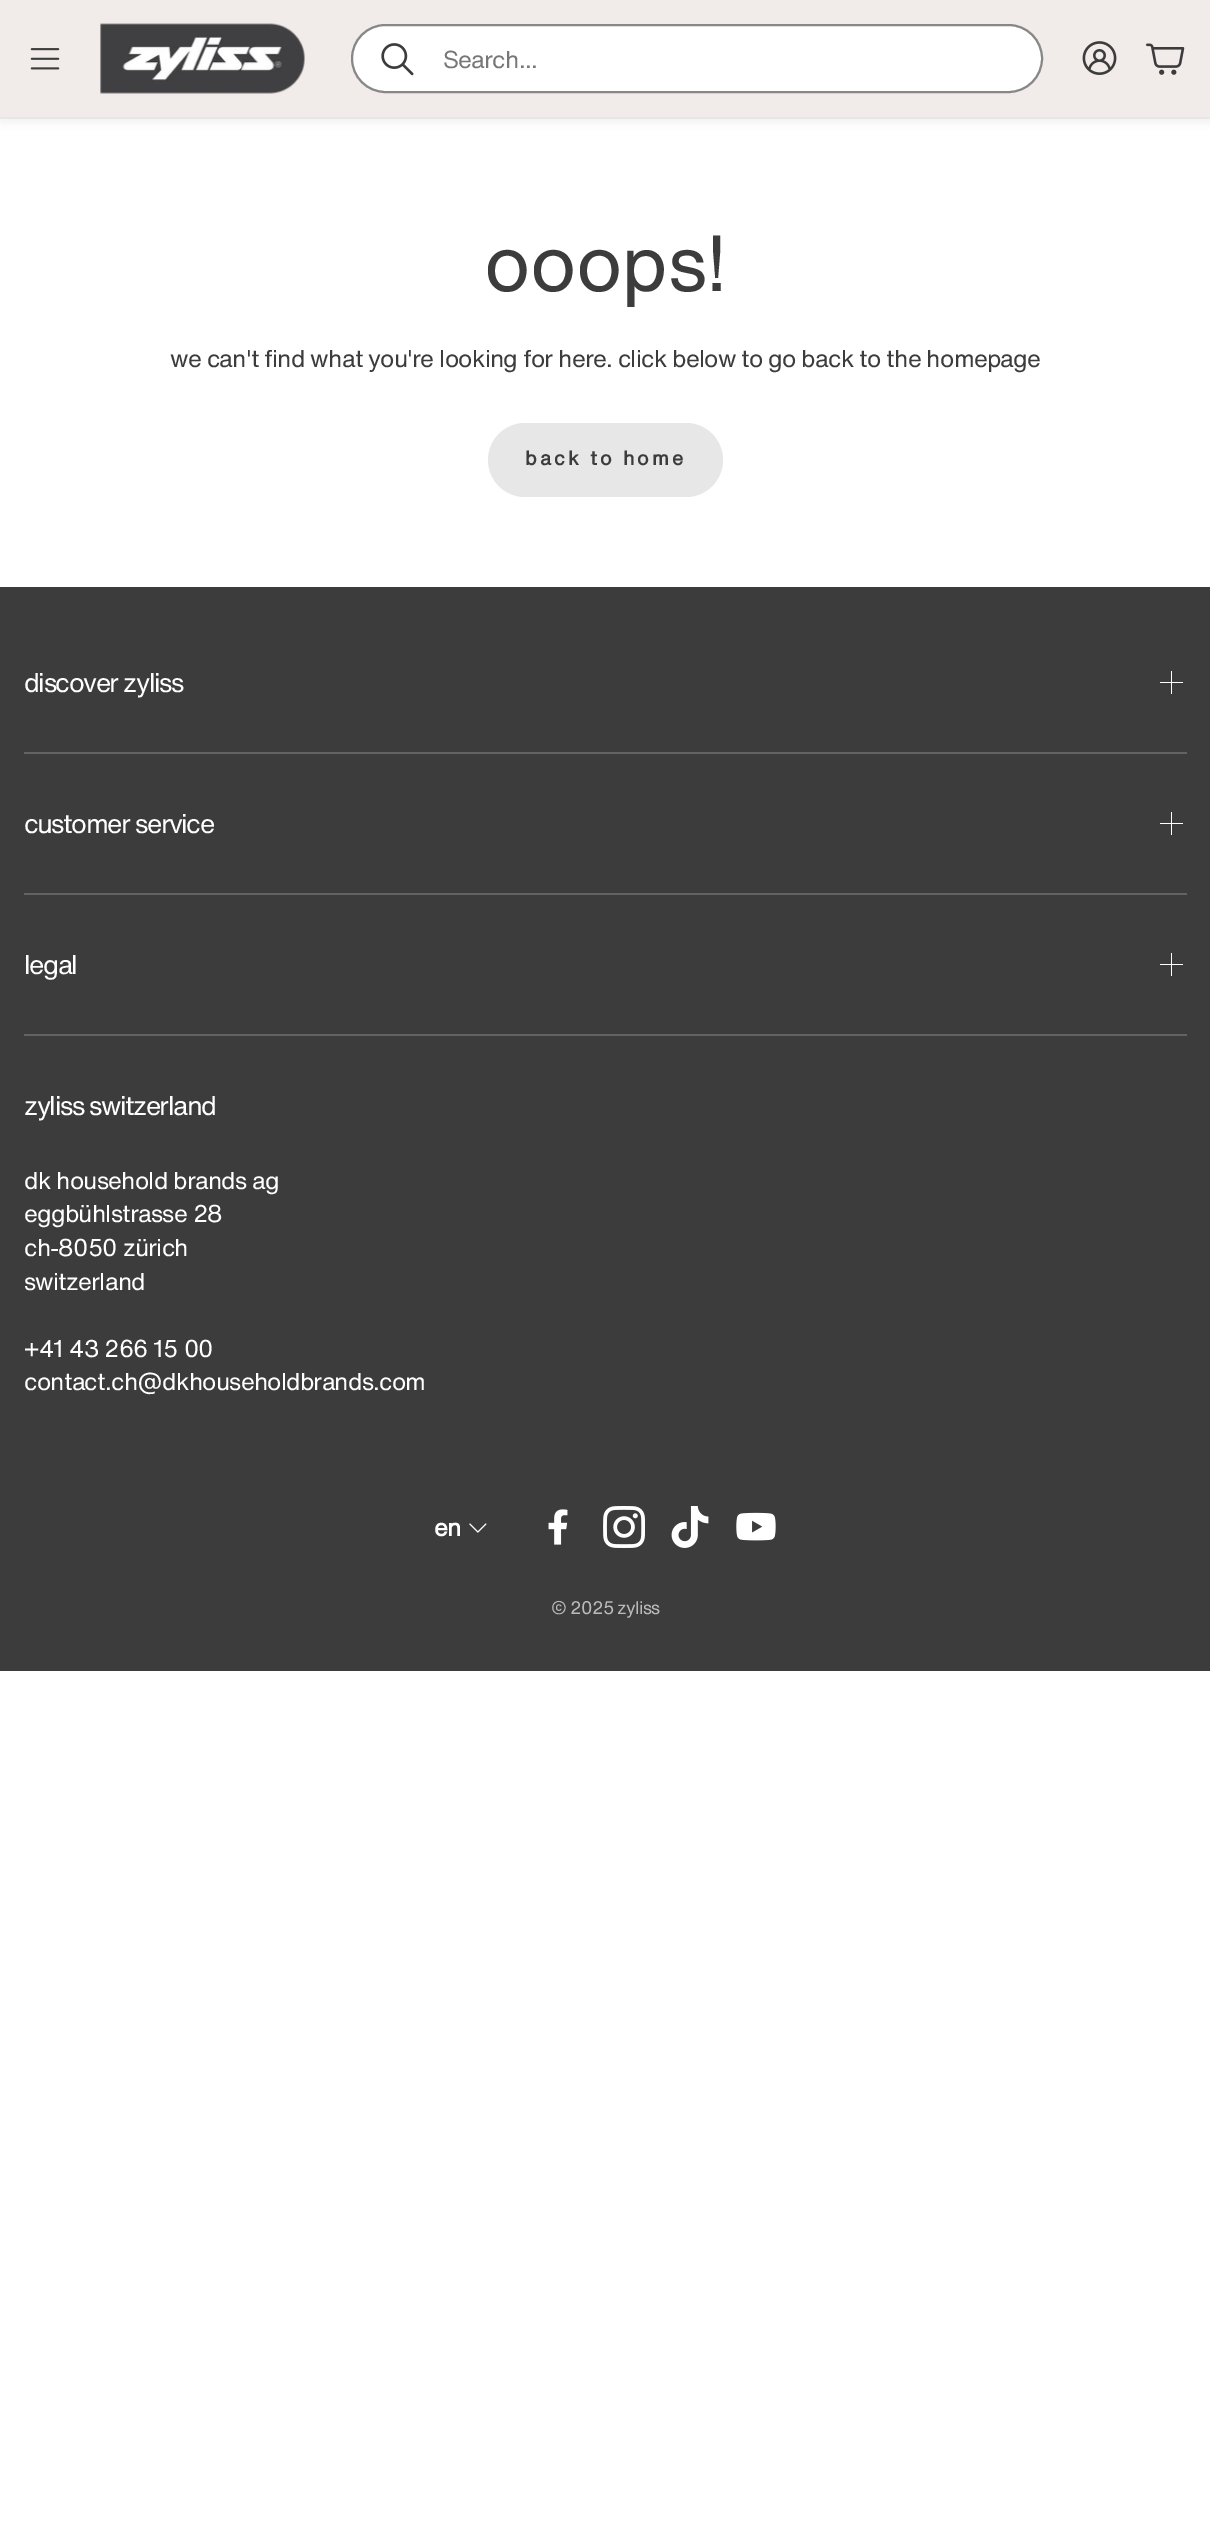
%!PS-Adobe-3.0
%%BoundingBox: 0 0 1210 2532
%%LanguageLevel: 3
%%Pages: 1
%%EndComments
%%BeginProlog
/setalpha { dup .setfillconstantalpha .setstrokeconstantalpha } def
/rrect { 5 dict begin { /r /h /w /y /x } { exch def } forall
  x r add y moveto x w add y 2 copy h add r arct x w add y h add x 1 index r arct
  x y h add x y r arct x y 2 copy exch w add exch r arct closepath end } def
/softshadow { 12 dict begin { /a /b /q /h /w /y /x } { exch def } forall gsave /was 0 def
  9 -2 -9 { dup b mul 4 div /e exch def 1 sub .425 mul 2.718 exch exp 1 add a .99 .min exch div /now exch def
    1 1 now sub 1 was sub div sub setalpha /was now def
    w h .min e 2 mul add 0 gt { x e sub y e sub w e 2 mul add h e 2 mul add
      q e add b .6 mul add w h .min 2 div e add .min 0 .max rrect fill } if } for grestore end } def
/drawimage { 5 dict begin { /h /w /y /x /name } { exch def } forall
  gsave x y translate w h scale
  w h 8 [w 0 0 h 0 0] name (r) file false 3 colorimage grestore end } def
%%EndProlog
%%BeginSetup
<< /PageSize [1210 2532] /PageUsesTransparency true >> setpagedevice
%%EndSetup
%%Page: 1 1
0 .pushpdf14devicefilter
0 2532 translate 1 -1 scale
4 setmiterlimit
1 setgray
0 0 1210 2532 rectfill
0 setgray
0 5 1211 118 0 4.5 0.05 softshadow
0.945 0.925 0.914 setrgbcolor
0 0 1210 117 rectfill
0.906 setgray
0 117 1210 2 rectfill
(images/1.raw) 30 48 30 22 drawimage
(images/2.raw) 100 23 205 71 drawimage
1 setgray
352 25 690 67 33.5 rrect gsave fill grestore
0.529 setgray
2 setlinewidth
stroke
(images/3.raw) 381 43 33 33 drawimage
(images/4.raw) 1082 41 35 34 drawimage
(images/5.raw) 1146 43 39 32 drawimage
0.906 setgray
488 423 235 74 37 rrect fill
0.235 setgray
0 587 1210 1084 rectfill
1 setgray
1160 682 23 1 0.5 rrect fill
1171 671 1 23 0.5 rrect fill
0.388 setgray
24 752 1163 2 rectfill
1 setgray
1160 823 23 1 0.5 rrect fill
1171 812 1 23 0.5 rrect fill
0.388 setgray
24 893 1163 2 rectfill
1 setgray
1160 964 23 1 0.5 rrect fill
1171 953 1 23 0.5 rrect fill
0.388 setgray
24 1034 1163 2 rectfill
(images/6.raw) 469 1523 18 10 drawimage
(images/7.raw) 548 1509 20 36 drawimage
(images/8.raw) 603 1506 42 42 drawimage
(images/9.raw) 671 1506 38 42 drawimage
(images/10.raw) 736 1512 40 29 drawimage
/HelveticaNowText-Regular [24 0 0 -24 0 0] selectfont
0.467 setgray
443 68 moveto -0.75 0 (Search...) ashow
/HelveticaNowText-Regular [78 0 0 -78 0 0] selectfont
0.235 setgray
484 291 moveto -0.75 0 (ooops!) ashow
/HelveticaNowText-Regular [24 0 0 -24 0 0] selectfont
170 367 moveto -0.75 0 (we can't find what you're looking for here. click below to go back to the homepage) ashow
/HelveticaNowText-Bold [19.5 0 0 -19.5 0 0] selectfont
525 465 moveto 3 0 (back to home) ashow
/HelveticaNowText-Regular [26.5 0 0 -26.5 0 0] selectfont
1 setgray
24 692 moveto -1.5 0 (discover zyliss) ashow
24 833 moveto -1.5 0 (customer service) ashow
24 974 moveto -1.5 0 (legal) ashow
24 1115 moveto -1.5 0 (zyliss switzerland) ashow
/HelveticaNowText-Regular [24 0 0 -24 0 0] selectfont
24 1189 moveto -0.75 0 (dk household brands ag) ashow
24 1222 moveto -0.75 0 (eggbühlstrasse 28) ashow
24 1256 moveto -0.75 0 (ch-8050 zürich) ashow
24 1290 moveto -0.75 0 (switzerland) ashow
24 1357 moveto -0.75 0 (+41 43 266 15 00) ashow
24 1390 moveto -0.75 0 (contact.ch@dkhouseholdbrands.com) ashow
/HelveticaNowText-Bold [24 0 0 -24 0 0] selectfont
434 1536 moveto -0.75 0 (en) ashow
/HelveticaNowText-Regular [18 0 0 -18 0 0] selectfont
0.733 setgray
551 1614 moveto -0.75 0 (© 2025 zyliss) ashow
.poppdf14devicefilter showpage
%%EOF
